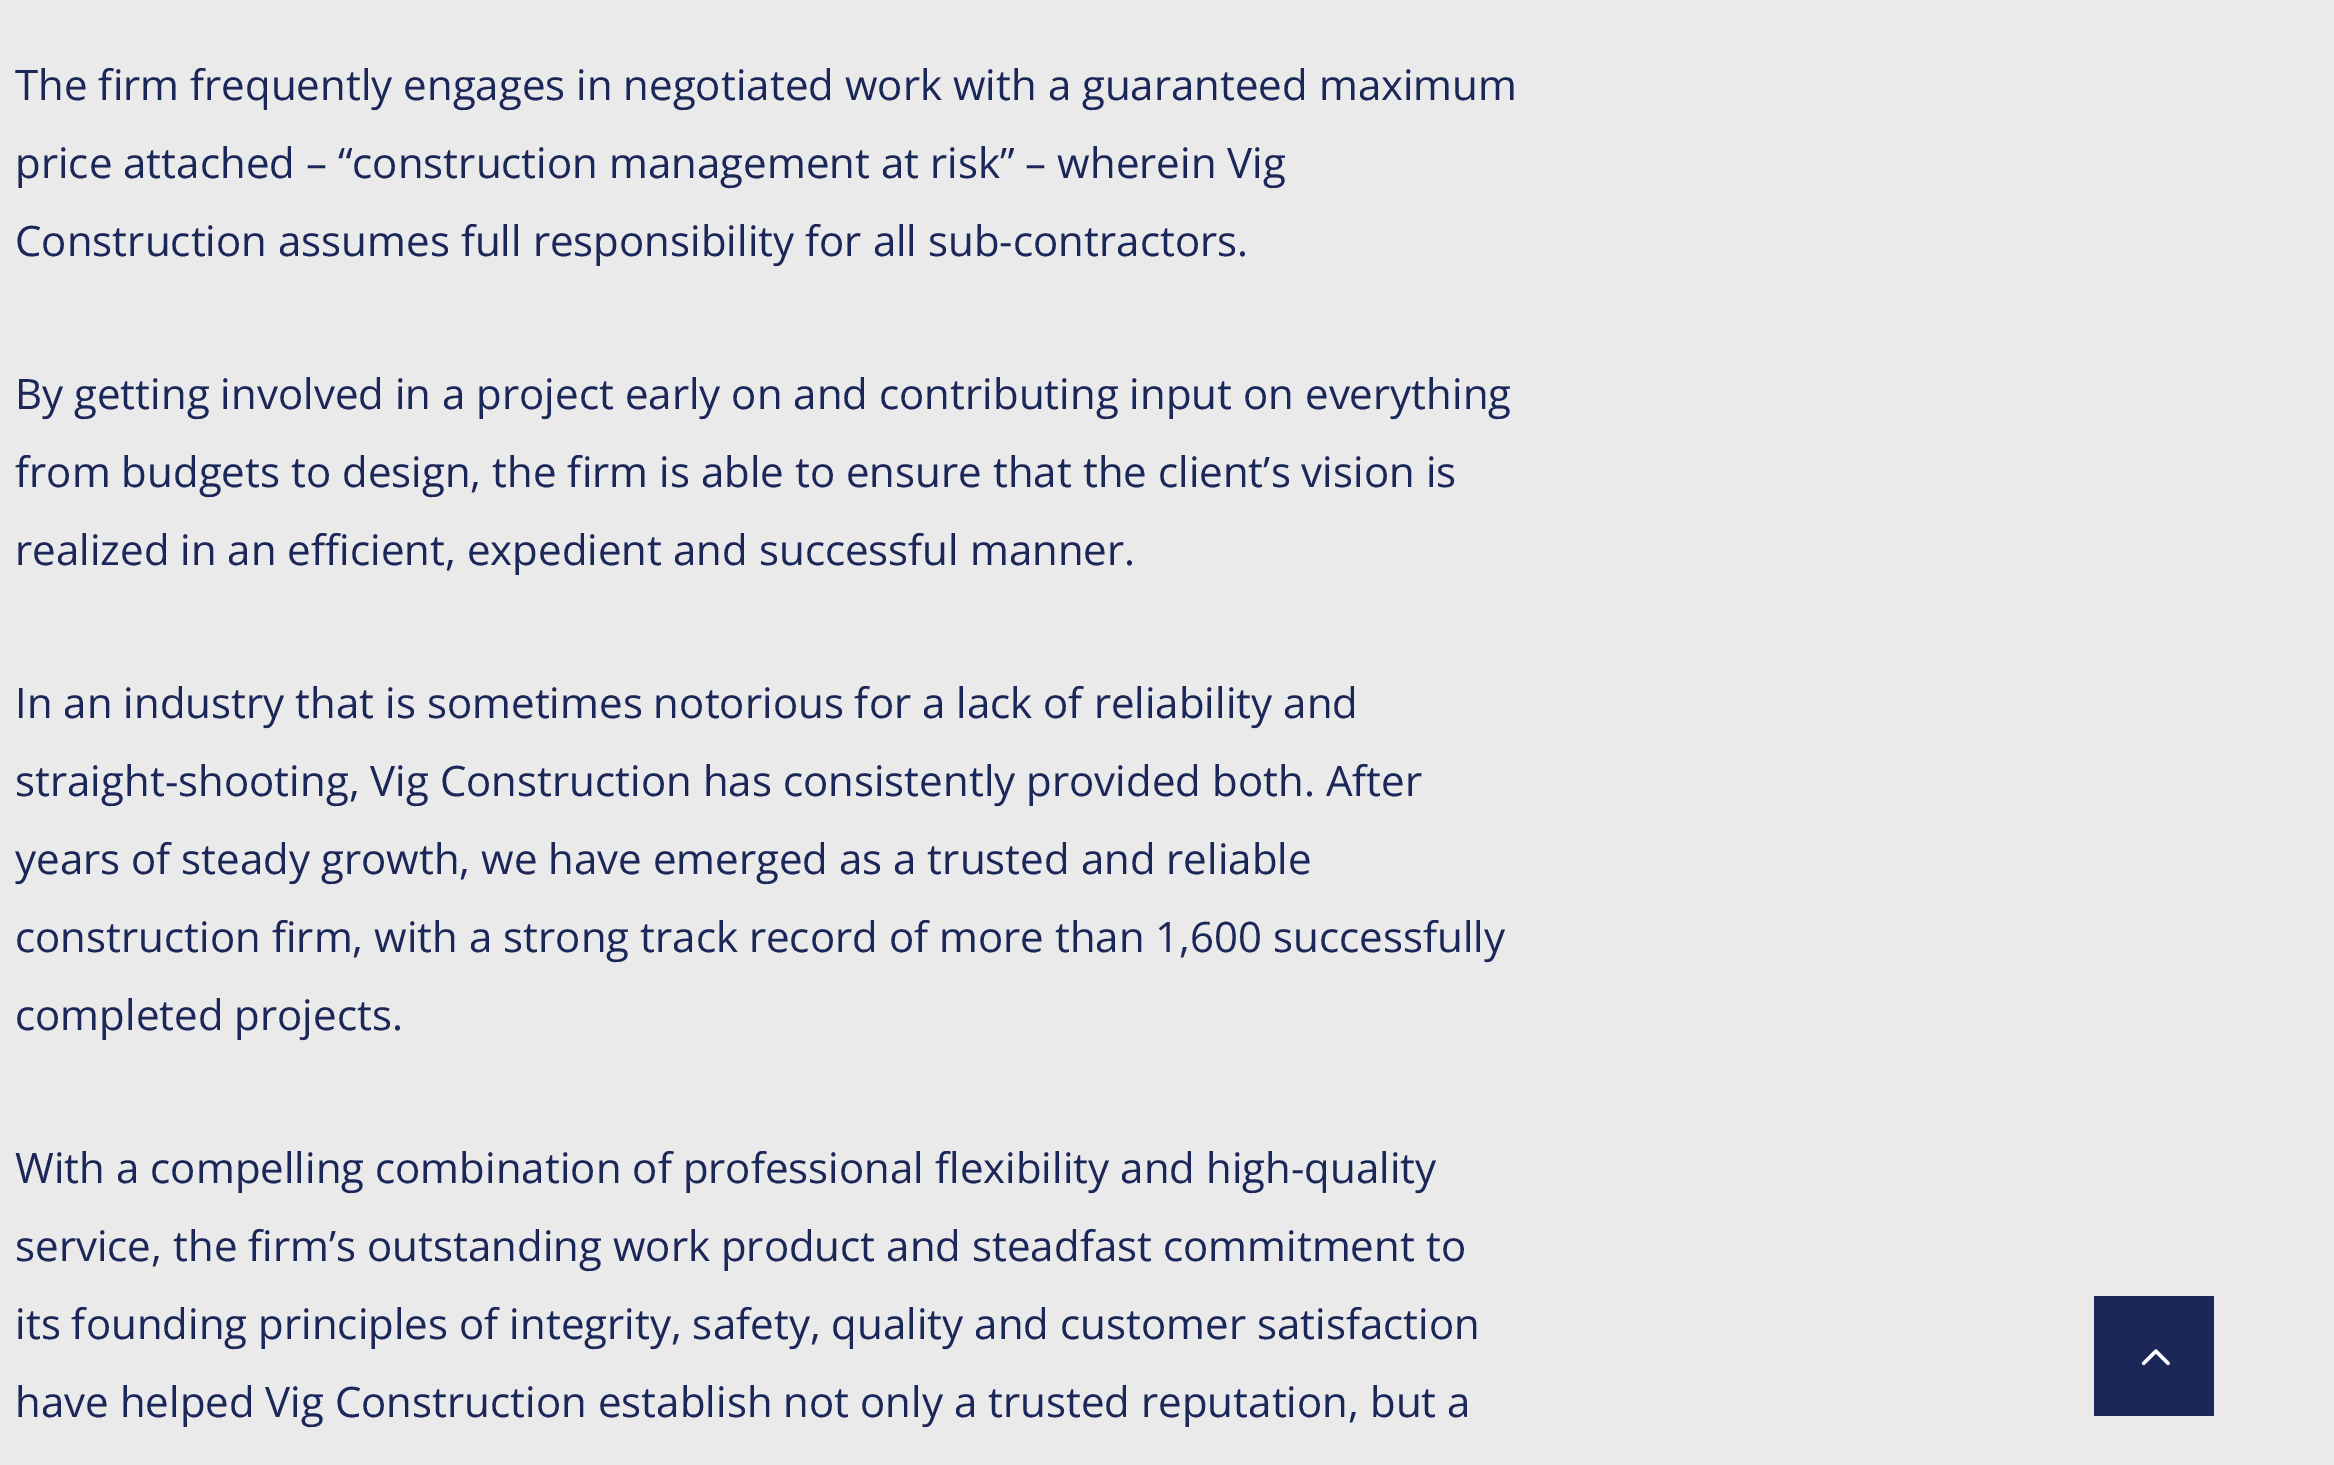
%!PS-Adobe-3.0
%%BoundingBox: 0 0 2334 1465
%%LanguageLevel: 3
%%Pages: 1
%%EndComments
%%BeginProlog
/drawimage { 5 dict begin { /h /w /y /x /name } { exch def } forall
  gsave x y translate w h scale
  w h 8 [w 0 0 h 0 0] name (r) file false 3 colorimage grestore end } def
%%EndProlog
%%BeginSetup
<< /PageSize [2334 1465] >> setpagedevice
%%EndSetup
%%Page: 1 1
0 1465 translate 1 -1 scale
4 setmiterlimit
0.918 setgray
0 0 2334 1465 rectfill
0.11 0.153 0.349 setrgbcolor
2094 1296 120 120 rectfill
(images/1.raw) 2141 1349 29 17 drawimage
/OpenSans-Regular [42 0 0 -42 0 0] selectfont
15 100 moveto (The firm frequently engages in negotiated work with a guaranteed maximum) show
15 178 moveto (price attached – “construction management at risk” – wherein Vig) show
15 256 moveto (Construction assumes full responsibility for all sub-contractors.) show
15 409 moveto (By getting involved in a project early on and contributing input on everything) show
15 487 moveto (from budgets to design, the firm is able to ensure that the client’s vision is) show
15 565 moveto (realized in an efficient, expedient and successful manner.) show
15 718 moveto (In an industry that is sometimes notorious for a lack of reliability and) show
15 796 moveto (straight-shooting, Vig Construction has consistently provided both. After) show
15 874 moveto (years of steady growth, we have emerged as a trusted and reliable) show
15 952 moveto (construction firm, with a strong track record of more than 1,600 successfully) show
15 1030 moveto (completed projects.) show
15 1183 moveto (With a compelling combination of professional flexibility and high-quality) show
15 1261 moveto (service, the firm’s outstanding work product and steadfast commitment to) show
15 1339 moveto (its founding principles of integrity, safety, quality and customer satisfaction) show
15 1417 moveto (have helped Vig Construction establish not only a trusted reputation, but a) show
showpage
%%EOF
